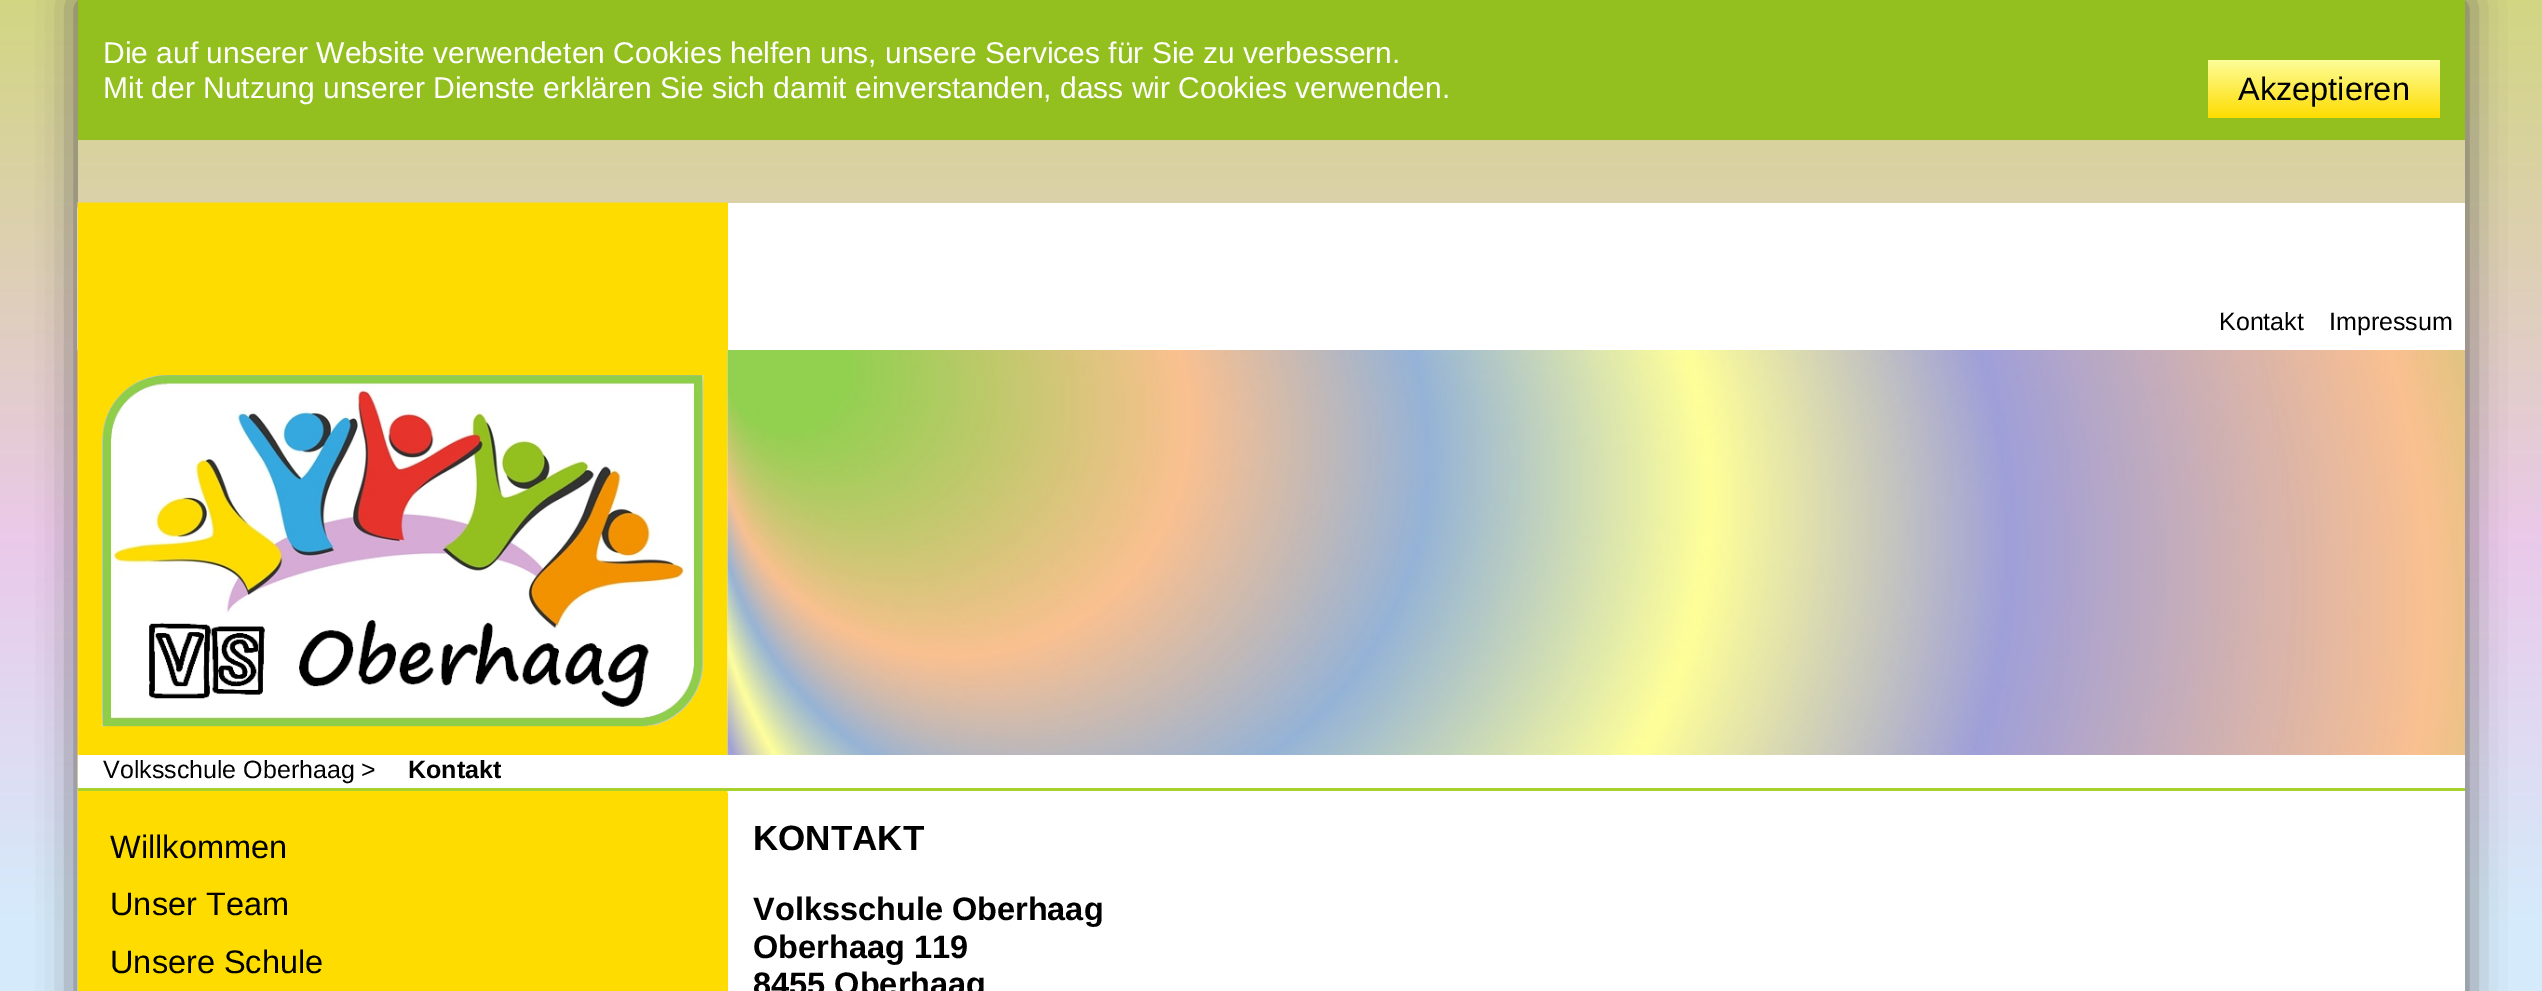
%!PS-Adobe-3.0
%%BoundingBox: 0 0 2542 991
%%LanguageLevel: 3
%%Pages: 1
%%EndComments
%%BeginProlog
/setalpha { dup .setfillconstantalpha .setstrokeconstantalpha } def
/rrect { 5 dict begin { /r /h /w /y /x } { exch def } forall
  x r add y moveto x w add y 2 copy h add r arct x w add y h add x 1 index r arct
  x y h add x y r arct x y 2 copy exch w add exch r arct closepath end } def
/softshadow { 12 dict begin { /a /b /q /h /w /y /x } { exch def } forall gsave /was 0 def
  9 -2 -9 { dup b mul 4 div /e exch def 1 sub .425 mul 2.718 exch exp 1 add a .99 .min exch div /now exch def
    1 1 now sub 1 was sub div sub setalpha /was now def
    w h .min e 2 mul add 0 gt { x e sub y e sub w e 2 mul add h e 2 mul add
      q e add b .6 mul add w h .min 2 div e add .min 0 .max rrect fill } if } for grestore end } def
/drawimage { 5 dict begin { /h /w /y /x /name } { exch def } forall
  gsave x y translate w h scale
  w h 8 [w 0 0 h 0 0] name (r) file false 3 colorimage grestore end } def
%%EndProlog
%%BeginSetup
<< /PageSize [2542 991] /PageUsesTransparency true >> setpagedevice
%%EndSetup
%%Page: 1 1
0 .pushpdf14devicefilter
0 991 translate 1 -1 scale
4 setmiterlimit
1 setgray
0 0 2542 991 rectfill
gsave newpath 0 0 moveto 2542 0 lineto 2542 991 lineto 0 991 lineto closepath clip newpath
<< /ShadingType 2 /ColorSpace /DeviceRGB /Coords [1271 0 1271 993] /Extend [true true] /Function << /FunctionType 3 /Domain [0 1] /Functions [<< /FunctionType 2 /Domain [0 1] /C0 [0.824 0.839 0.51] /C1 [0.918 0.788 0.914] /N 1 >> << /FunctionType 2 /Domain [0 1] /C0 [0.918 0.788 0.914] /C1 [0.835 0.922 0.984] /N 1 >> << /FunctionType 2 /Domain [0 1] /C0 [0.835 0.922 0.984] /C1 [0.835 0.922 0.984] /N 1 >>] /Bounds [0.54 0.93] /Encode [0 1 0 1 0 1] >> >> shfill grestore
gsave
newpath 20 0 moveto 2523 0 lineto 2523 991 lineto 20 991 lineto closepath 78 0 moveto 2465 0 lineto 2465 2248 lineto 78 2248 lineto closepath eoclip newpath
0.373 0.357 0.357 setrgbcolor
78 0 2387 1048 0 19 1 softshadow
grestore
0.576 0.753 0.122 setrgbcolor
78 0 2387 140 rectfill
gsave newpath 2208 60 moveto 2440 60 lineto 2440 118 lineto 2208 118 lineto closepath clip newpath
<< /ShadingType 2 /ColorSpace /DeviceRGB /Coords [2324 60 2324 118] /Extend [true true] /Function << /FunctionType 2 /Domain [0 1] /C0 [0.992 0.992 0.6] /C1 [0.996 0.863 0] /N 1 >> >> shfill grestore
(images/1.raw) 77 207 1 548 drawimage
1 setgray
78 203 2387 788 rectfill
(images/2.raw) 77 202 651 789 drawimage
0.996 0.863 0 setrgbcolor
78 203 650 147 rectfill
(images/3.raw) 101 375 603 353 drawimage
(images/4.raw) 727 350 1738 405 drawimage
1 setgray
78 755 650 33 rectfill
0.659 0.82 0.169 setrgbcolor
78 788 2387 3 rectfill
0.996 0.863 0 setrgbcolor
78 793 650 198 rectfill
/LiberationSans-Regular [30 0 0 -30 0 0] selectfont
1 setgray
103 63 moveto (Die auf unserer Website verwendeten Cookies helfen uns, unsere Services für Sie zu verbessern.) show
103 98 moveto (Mit der Nutzung unserer Dienste erklären Sie sich damit einverstanden, dass wir Cookies verwenden.) show
/LiberationSans-Regular [32.5 0 0 -32.5 0 0] selectfont
0 setgray
2238 100 moveto (Akzeptieren) show
/LiberationSans-Regular [25 0 0 -25 0 0] selectfont
2219 330 moveto (Kontakt) show
2329 330 moveto (Impressum) show
103 778 moveto (Volksschule Oberhaag >) show
/LiberationSans-Bold [25 0 0 -25 0 0] selectfont
408 778 moveto (Kontakt) show
/LiberationSans-Regular [32.5 0 0 -32.5 0 0] selectfont
110 858 moveto (Willkommen) show
110 915 moveto (Unser Team) show
110 973 moveto (Unsere Schule) show
/LiberationSans-Bold [35 0 0 -35 0 0] selectfont
753 850 moveto (KONTAKT) show
/LiberationSans-Bold [32.5 0 0 -32.5 0 0] selectfont
753 920 moveto (Volksschule Oberhaag) show
753 958 moveto (Oberhaag 119) show
753 995 moveto (8455 Oberhaag) show
.poppdf14devicefilter showpage
%%EOF
